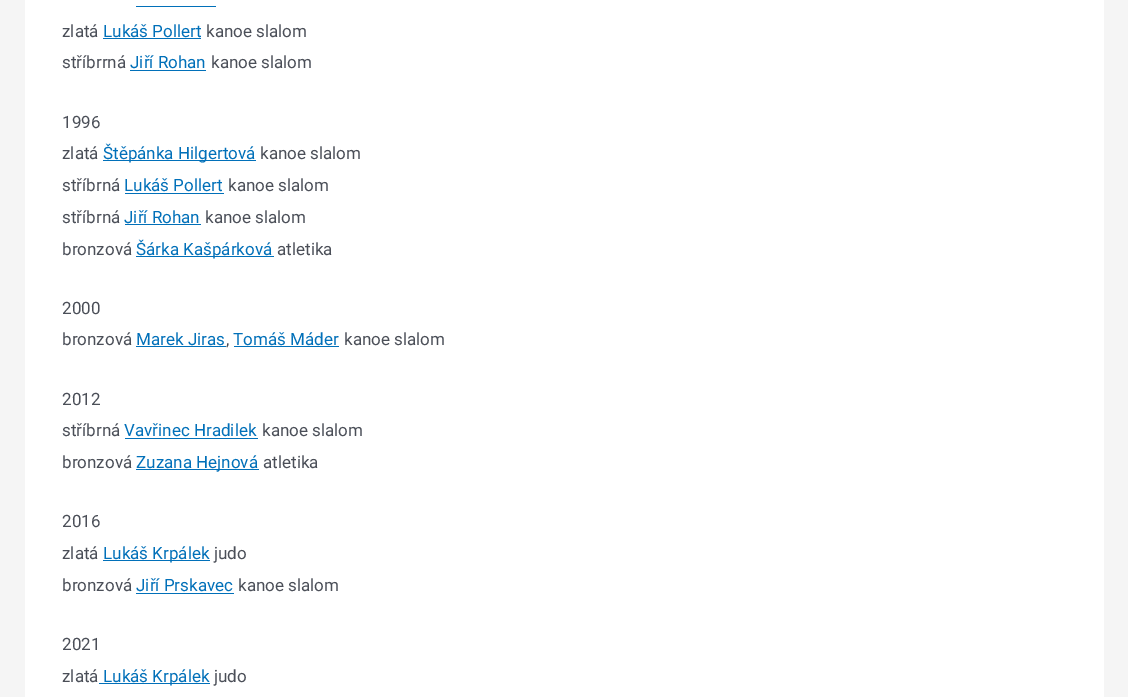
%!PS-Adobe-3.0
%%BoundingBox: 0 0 1128 697
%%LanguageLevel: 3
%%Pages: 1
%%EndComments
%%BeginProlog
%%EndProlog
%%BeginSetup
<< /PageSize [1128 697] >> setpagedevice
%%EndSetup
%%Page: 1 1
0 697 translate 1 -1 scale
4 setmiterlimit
0.961 setgray
0 0 1128 697 rectfill
1 setgray
25 0 1079 697 rectfill
0.004 0.439 0.725 setrgbcolor
136 6 80 1 rectfill
103 38 98 1 rectfill
130 70 76 1 rectfill
103 160 153 1 rectfill
125 193 99 1 rectfill
125 224 76 1 rectfill
136 256 138 1 rectfill
136 346 90 1 rectfill
234 346 105 1 rectfill
125 438 133 1 rectfill
136 469 123 1 rectfill
103 560 107 1 rectfill
136 593 98 1 rectfill
99 683 111 1 rectfill
/Roboto-Regular [17 0 0 -17 0 0] selectfont
0.294 0.31 0.345 setrgbcolor
62 37 moveto (zlatá) show
0.004 0.439 0.725 setrgbcolor
103 37 moveto (Lukáš Pollert) show
0.294 0.31 0.345 setrgbcolor
206 37 moveto (kanoe slalom) show
62 68 moveto (stříbrrná) show
0.004 0.439 0.725 setrgbcolor
130 68 moveto (Jiří Rohan) show
0.294 0.31 0.345 setrgbcolor
211 68 moveto (kanoe slalom) show
62 128 moveto (1996) show
62 159 moveto (zlatá) show
0.004 0.439 0.725 setrgbcolor
103 159 moveto (Štěpánka Hilgertová) show
0.294 0.31 0.345 setrgbcolor
260 159 moveto (kanoe slalom) show
62 191 moveto (stříbrná) show
0.004 0.439 0.725 setrgbcolor
124 191 moveto (Lukáš Pollert) show
0.294 0.31 0.345 setrgbcolor
228 191 moveto (kanoe slalom) show
62 223 moveto (stříbrná) show
0.004 0.439 0.725 setrgbcolor
124 223 moveto (Jiří Rohan) show
0.294 0.31 0.345 setrgbcolor
205 223 moveto (kanoe slalom) show
62 255 moveto (bronzová) show
0.004 0.439 0.725 setrgbcolor
136 255 moveto (Šárka Kašpárková) show
0.294 0.31 0.345 setrgbcolor
277 255 moveto (atletika) show
62 314 moveto (2000) show
62 345 moveto (bronzová) show
0.004 0.439 0.725 setrgbcolor
136 345 moveto (Marek Jiras) show
0.294 0.31 0.345 setrgbcolor
226 345 moveto (,) show
0.004 0.439 0.725 setrgbcolor
233 345 moveto (Tomáš Máder) show
0.294 0.31 0.345 setrgbcolor
344 345 moveto (kanoe slalom) show
62 405 moveto (2012) show
62 436 moveto (stříbrná) show
0.004 0.439 0.725 setrgbcolor
124 436 moveto (Vavřinec Hradilek) show
0.294 0.31 0.345 setrgbcolor
262 436 moveto (kanoe slalom) show
62 468 moveto (bronzová) show
0.004 0.439 0.725 setrgbcolor
136 468 moveto (Zuzana Hejnová) show
0.294 0.31 0.345 setrgbcolor
263 468 moveto (atletika) show
62 527 moveto (2016) show
62 559 moveto (zlatá) show
0.004 0.439 0.725 setrgbcolor
103 559 moveto (Lukáš Krpálek) show
0.294 0.31 0.345 setrgbcolor
214 559 moveto (judo) show
62 591 moveto (bronzová) show
0.004 0.439 0.725 setrgbcolor
136 591 moveto (Jiří Prskavec) show
0.294 0.31 0.345 setrgbcolor
238 591 moveto (kanoe slalom) show
62 650 moveto (2021) show
62 682 moveto (zlatá) show
0.004 0.439 0.725 setrgbcolor
103 682 moveto (Lukáš Krpálek) show
0.294 0.31 0.345 setrgbcolor
214 682 moveto (judo) show
showpage
%%EOF
